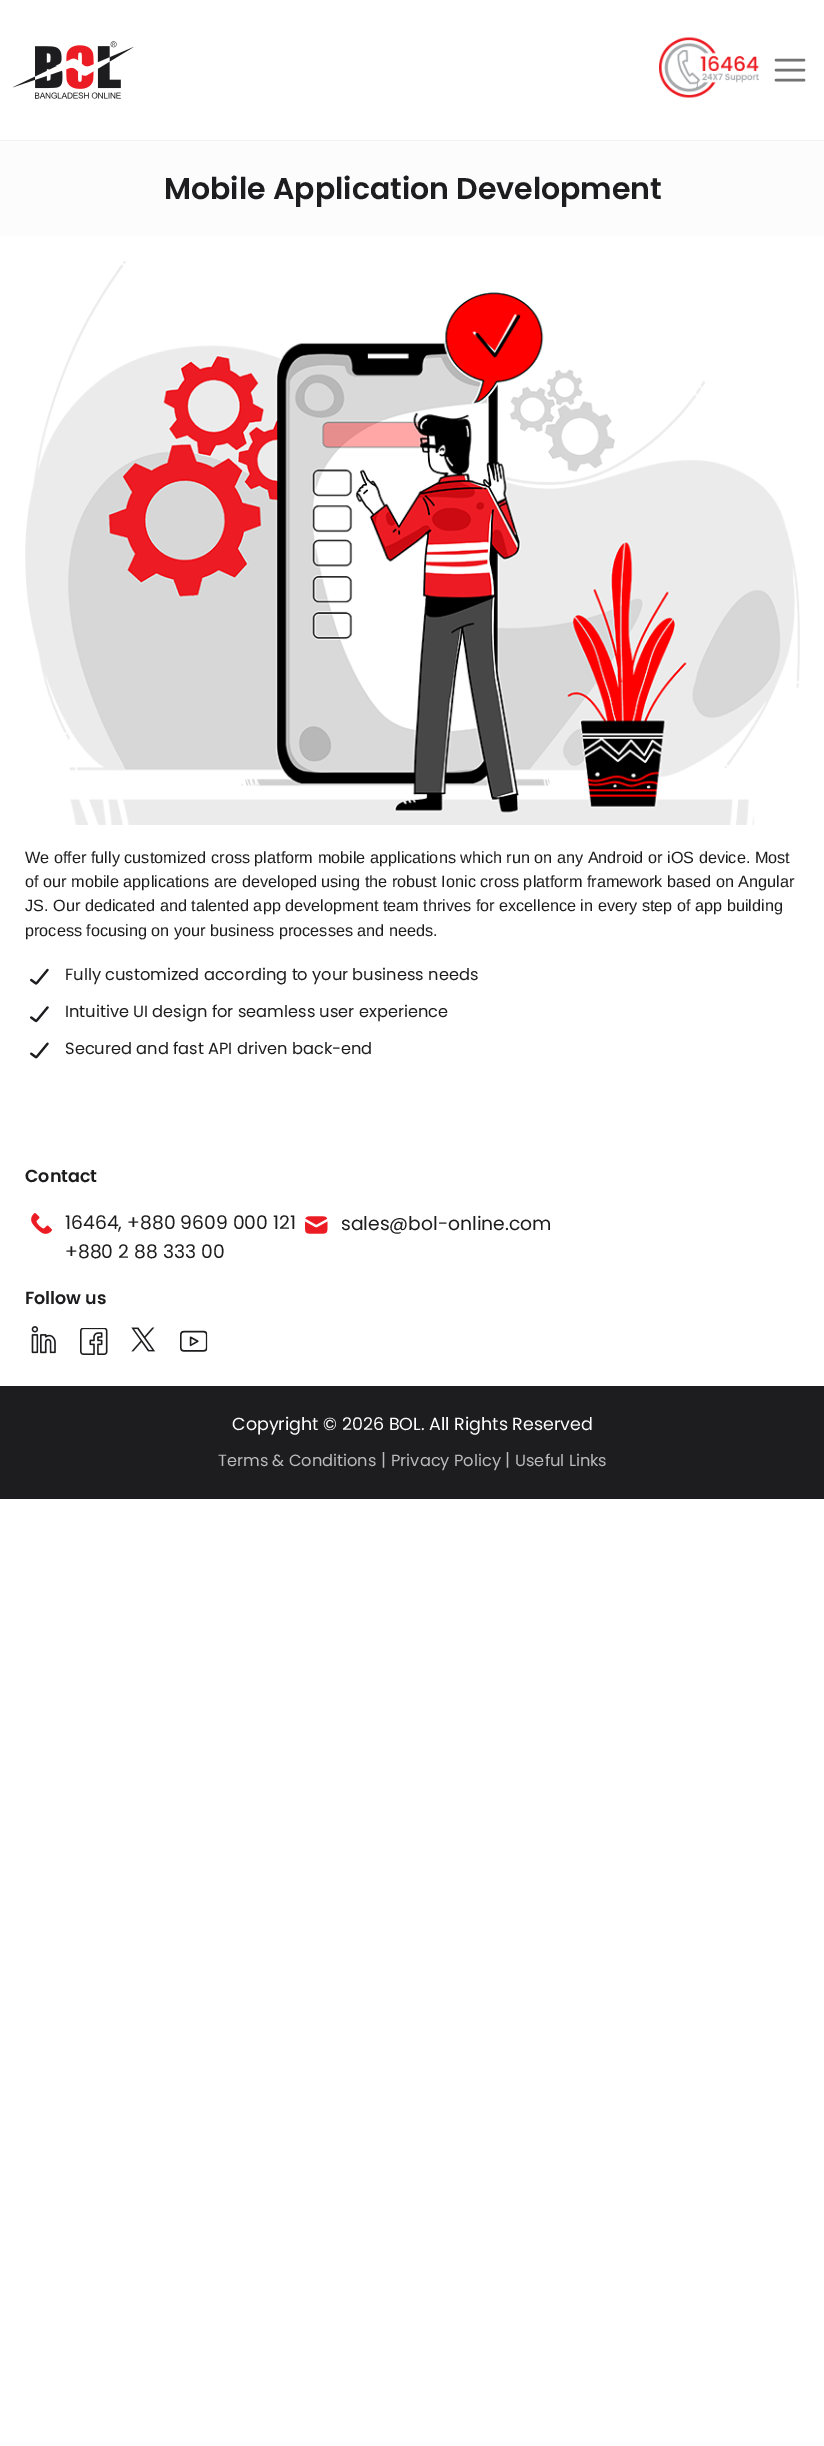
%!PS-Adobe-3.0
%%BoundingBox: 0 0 824 2446
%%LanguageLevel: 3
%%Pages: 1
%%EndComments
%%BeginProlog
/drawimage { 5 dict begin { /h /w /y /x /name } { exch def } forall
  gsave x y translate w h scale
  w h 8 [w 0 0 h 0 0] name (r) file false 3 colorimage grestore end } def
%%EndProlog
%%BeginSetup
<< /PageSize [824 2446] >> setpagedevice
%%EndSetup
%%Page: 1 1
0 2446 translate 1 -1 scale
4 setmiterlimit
1 setgray
0 0 824 2446 rectfill
0.949 setgray
0 140 824 1 rectfill
(images/1.raw) 13 41 121 58 drawimage
(images/2.raw) 659 37 100 61 drawimage
0.451 setgray
2.5 setlinewidth
1 setlinecap
newpath 776 60 moveto 804 60 lineto 776 70 moveto 804 70 lineto 776 80 moveto 804 80 lineto stroke
0.988 setgray
0 141 824 95 rectfill
(images/3.raw) 25 261 775 564 drawimage
(images/4.raw) 30 968 19 17 drawimage
(images/5.raw) 30 1006 19 17 drawimage
(images/6.raw) 30 1042 19 17 drawimage
(images/7.raw) 31 1213 21 21 drawimage
(images/8.raw) 305 1216 23 18 drawimage
(images/9.raw) 31 1326 25 28 drawimage
(images/10.raw) 80 1328 28 27 drawimage
(images/11.raw) 131 1327 24 25 drawimage
(images/12.raw) 180 1330 28 22 drawimage
0.114 0.114 0.122 setrgbcolor
0 1386 824 113 rectfill
/Poppins-SemiBold [30 0 0 -30 0 0] selectfont
164 199 moveto (Mobile Application Development) show
/LiberationSans-Regular [16.25 0 0 -16.25 0 0] selectfont
25 863 moveto (We offer fully customized cross platform mobile applications which run on any Android or iOS device. Most) show
25 887 moveto (of our mobile applications are developed using the robust Ionic cross platform framework based on Angular) show
25 911 moveto (JS. Our dedicated and talented app development team thrives for excellence in every step of app building) show
25 936 moveto (process focusing on your business processes and needs.) show
/Poppins-Regular [16.25 0 0 -16.25 0 0] selectfont
65 980 moveto (Fully customized according to your business needs) show
65 1017 moveto (Intuitive UI design for seamless user experience) show
65 1054 moveto (Secured and fast API driven back-end) show
/Poppins-SemiBold [17.5 0 0 -17.5 0 0] selectfont
25 1182 moveto (Contact) show
/Poppins-Regular [18.75 0 0 -18.75 0 0] selectfont
65 1229 moveto (16464, +880 9609 000 121) show
65 1258 moveto (+880 2 88 333 00) show
341 1230 moveto (sales@bol-online.com) show
/Poppins-SemiBold [17.5 0 0 -17.5 0 0] selectfont
25 1304 moveto (Follow us) show
/Poppins-Regular [17.5 0 0 -17.5 0 0] selectfont
1 setgray
232 1430 moveto (Copyright © 2026 BOL. All Rights Reserved) show
/Poppins-Regular [16.25 0 0 -16.25 0 0] selectfont
0.733 0.733 0.737 setrgbcolor
218 1466 moveto (Terms & Conditions) show
/Poppins-Regular [17.5 0 0 -17.5 0 0] selectfont
381 1466 moveto (|) show
/Poppins-Regular [16.25 0 0 -16.25 0 0] selectfont
391 1466 moveto (Privacy Policy) show
/Poppins-Regular [17.5 0 0 -17.5 0 0] selectfont
505 1466 moveto (|) show
/Poppins-Regular [16.25 0 0 -16.25 0 0] selectfont
515 1466 moveto (Useful Links) show
showpage
%%EOF
